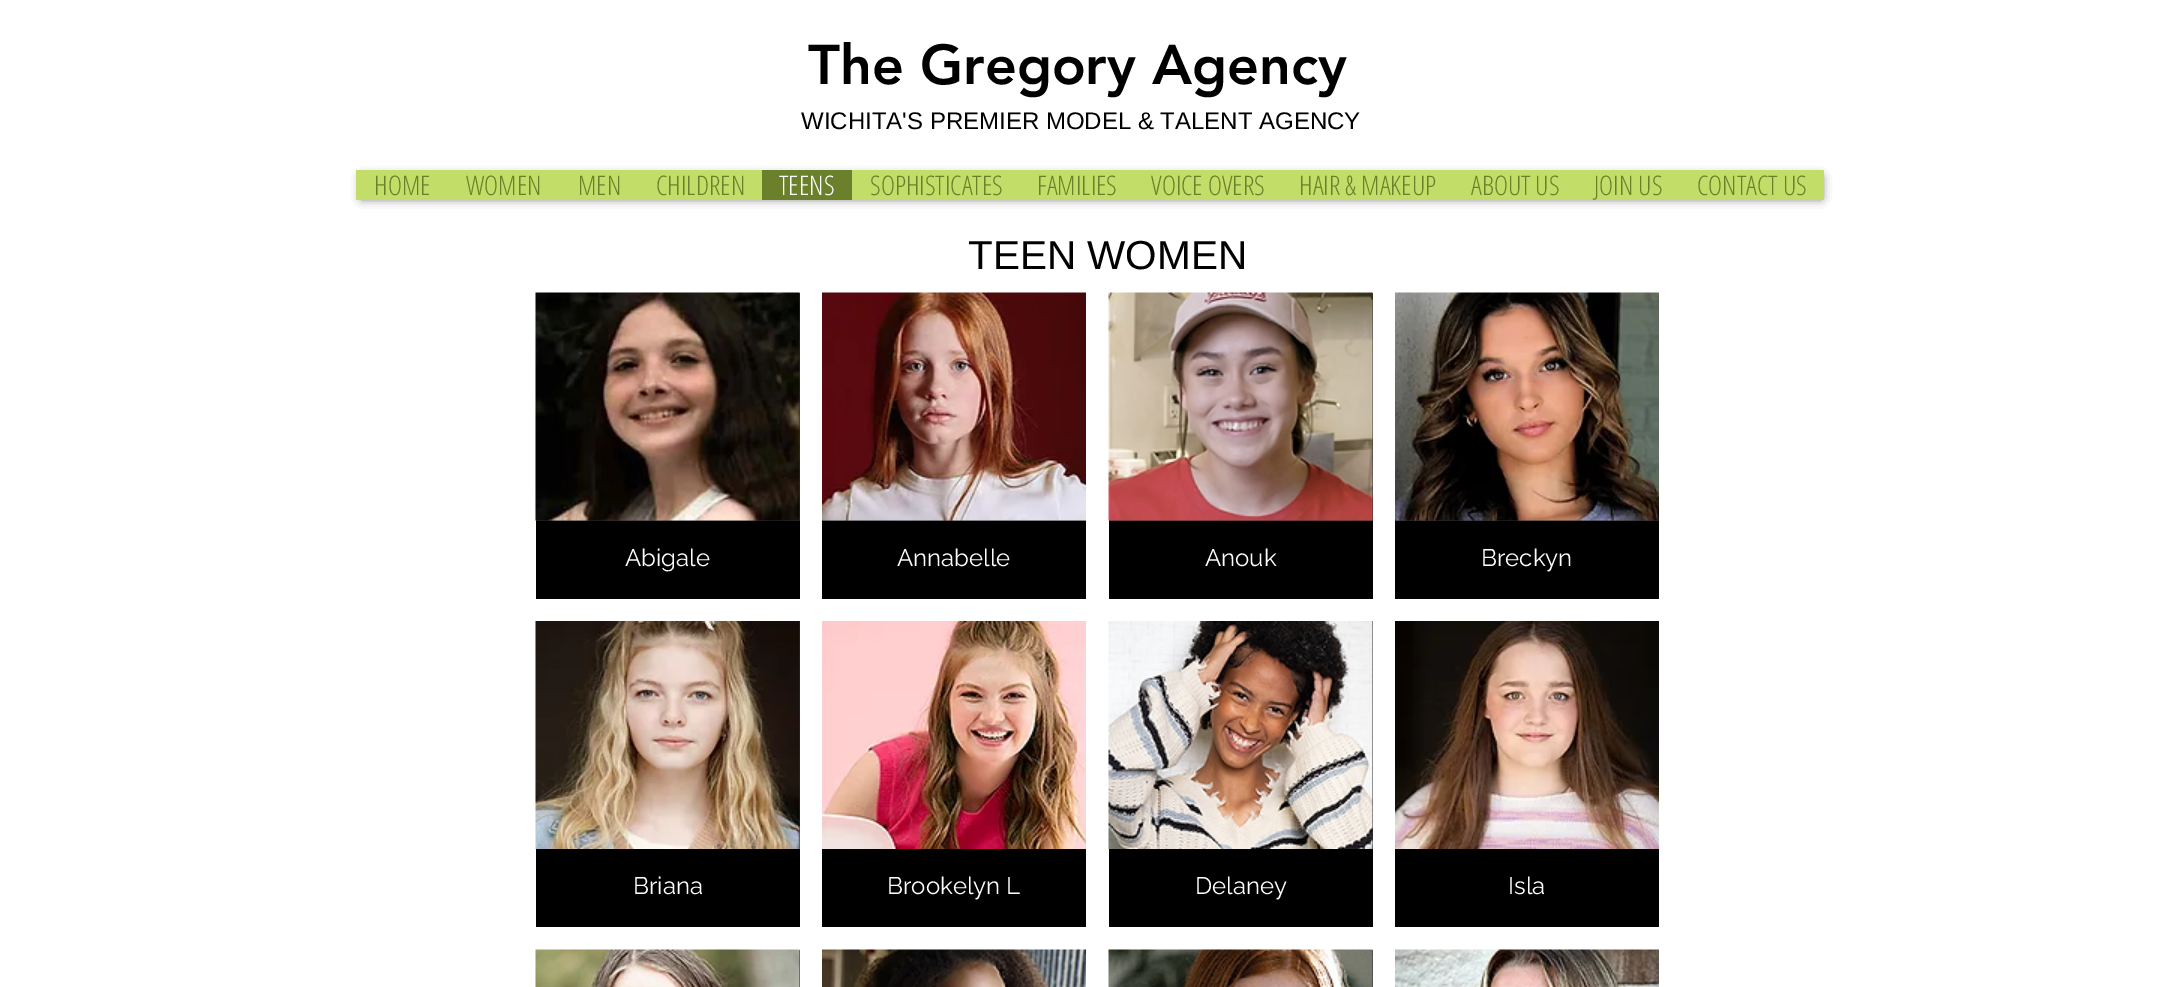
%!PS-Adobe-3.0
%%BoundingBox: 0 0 2180 987
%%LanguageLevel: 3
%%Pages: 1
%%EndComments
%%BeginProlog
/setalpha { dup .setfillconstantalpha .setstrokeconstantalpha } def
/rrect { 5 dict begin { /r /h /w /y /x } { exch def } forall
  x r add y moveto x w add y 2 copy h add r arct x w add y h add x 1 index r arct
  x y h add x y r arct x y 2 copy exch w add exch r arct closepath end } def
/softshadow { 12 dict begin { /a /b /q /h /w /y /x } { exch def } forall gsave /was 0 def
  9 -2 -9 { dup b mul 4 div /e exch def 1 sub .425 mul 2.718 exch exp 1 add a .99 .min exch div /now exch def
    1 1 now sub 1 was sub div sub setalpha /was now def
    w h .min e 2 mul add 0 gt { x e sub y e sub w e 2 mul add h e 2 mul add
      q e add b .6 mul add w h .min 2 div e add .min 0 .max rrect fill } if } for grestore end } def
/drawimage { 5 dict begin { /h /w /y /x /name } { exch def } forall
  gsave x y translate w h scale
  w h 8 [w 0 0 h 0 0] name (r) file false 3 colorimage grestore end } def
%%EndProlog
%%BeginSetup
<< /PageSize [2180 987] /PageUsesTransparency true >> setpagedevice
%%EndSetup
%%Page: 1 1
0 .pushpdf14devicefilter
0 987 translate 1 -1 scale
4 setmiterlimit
1 setgray
0 0 2180 987 rectfill
gsave
newpath 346 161 moveto 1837 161 lineto 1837 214 lineto 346 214 lineto closepath 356 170 moveto 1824 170 lineto 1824 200 lineto 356 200 lineto closepath eoclip newpath
0 setgray
362 177 1459 21 0 5 0.7 softshadow
grestore
0.89 setalpha
0.729 0.855 0.333 setrgbcolor
356 170 1468 30 rectfill
1 setalpha
0.42 0.502 0.165 setrgbcolor
762 170 90 30 rectfill
0.184 0.18 0.18 setrgbcolor
536 293 264 228 rectfill
(images/1.raw) 535 292 265 229 drawimage
0 setgray
536 521 264 78 rectfill
0.184 0.18 0.18 setrgbcolor
822 520 264 1 rectfill
(images/2.raw) 822 292 264 229 drawimage
0 setgray
822 521 264 78 rectfill
0.184 0.18 0.18 setrgbcolor
1109 293 264 228 rectfill
(images/3.raw) 1108 292 265 229 drawimage
0 setgray
1109 521 264 78 rectfill
0.184 0.18 0.18 setrgbcolor
1395 520 264 1 rectfill
(images/4.raw) 1395 292 264 229 drawimage
0 setgray
1395 521 264 78 rectfill
0.184 0.18 0.18 setrgbcolor
799 621 1 228 rectfill
(images/5.raw) 535 621 265 228 drawimage
0 setgray
536 849 264 78 rectfill
(images/6.raw) 822 621 264 228 drawimage
822 849 264 78 rectfill
0.184 0.18 0.18 setrgbcolor
1372 621 1 228 rectfill
(images/7.raw) 1108 621 265 228 drawimage
0 setgray
1109 849 264 78 rectfill
(images/8.raw) 1395 621 264 228 drawimage
1395 849 264 78 rectfill
0.184 0.18 0.18 setrgbcolor
799 950 1 37 rectfill
(images/9.raw) 535 949 265 38 drawimage
(images/10.raw) 822 949 264 38 drawimage
1372 950 1 37 rectfill
(images/11.raw) 1108 949 265 38 drawimage
(images/12.raw) 1395 949 264 38 drawimage
/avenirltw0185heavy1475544-Black [55.5 0 0 -55.5 0 0] selectfont
0 setgray
808 84 moveto (The Gregory Agency) show
/LiberationSans-Regular [24 0 0 -24 0 0] selectfont
801 129 moveto (WICHITA'S PREMIER MODEL & TALENT AGENCY) show
/OpenSansCondensed-Light [27 0 0 -27 0 0] selectfont
0.42 0.502 0.165 setrgbcolor
374 195 moveto (HOME) show
466 195 moveto (WOMEN) show
578 195 moveto (MEN) show
656 195 moveto (CHILDREN) show
1 setgray
779 195 moveto (TEENS) show
0.42 0.502 0.165 setrgbcolor
870 195 moveto (SOPHISTICATES) show
1037 195 moveto (FAMILIES) show
1151 195 moveto (VOICE OVERS) show
1299 195 moveto (HAIR & MAKEUP) show
1471 195 moveto (ABOUT US) show
1594 195 moveto (JOIN US) show
1697 195 moveto (CONTACT US) show
/LiberationSans-Regular [40.5 0 0 -40.5 0 0] selectfont
0 setgray
968 269 moveto (TEEN WOMEN) show
/Raleway-Regular [24 0 0 -24 0 0] selectfont
1 setgray
625 566 moveto (Abigale) show
897 566 moveto (Annabelle) show
1205 566 moveto (Anouk) show
1481 566 moveto (Breckyn) show
633 894 moveto (Briana) show
887 894 moveto (Brookelyn L) show
1195 894 moveto (Delaney) show
1508 894 moveto (Isla) show
.poppdf14devicefilter showpage
%%EOF
